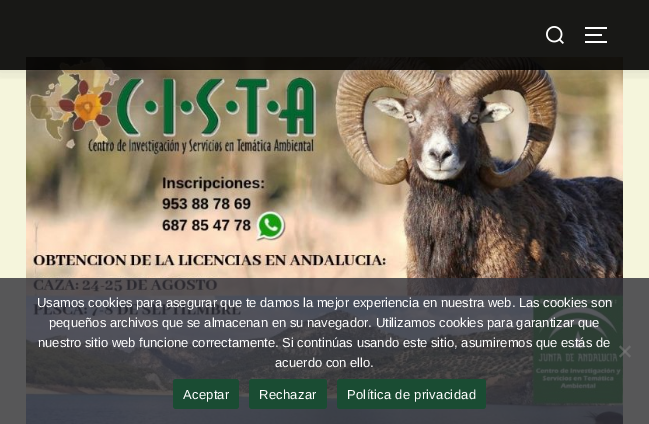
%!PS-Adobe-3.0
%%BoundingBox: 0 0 649 424
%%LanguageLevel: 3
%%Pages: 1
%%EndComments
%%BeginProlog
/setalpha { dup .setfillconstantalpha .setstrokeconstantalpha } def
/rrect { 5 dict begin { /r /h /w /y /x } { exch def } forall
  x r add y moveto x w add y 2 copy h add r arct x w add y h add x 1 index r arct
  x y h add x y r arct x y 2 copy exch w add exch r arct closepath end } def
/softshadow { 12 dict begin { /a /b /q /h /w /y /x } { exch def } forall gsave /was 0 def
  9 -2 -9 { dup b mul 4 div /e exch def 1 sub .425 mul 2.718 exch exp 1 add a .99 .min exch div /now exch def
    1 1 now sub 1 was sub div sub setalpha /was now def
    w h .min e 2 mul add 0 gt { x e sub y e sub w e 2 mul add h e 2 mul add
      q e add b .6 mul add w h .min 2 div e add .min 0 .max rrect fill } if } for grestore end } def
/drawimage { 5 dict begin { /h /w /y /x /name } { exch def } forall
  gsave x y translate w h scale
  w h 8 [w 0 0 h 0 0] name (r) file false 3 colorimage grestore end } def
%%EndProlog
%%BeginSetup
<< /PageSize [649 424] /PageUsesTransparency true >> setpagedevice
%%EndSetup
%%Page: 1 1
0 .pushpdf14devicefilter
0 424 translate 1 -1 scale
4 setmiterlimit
0.961 0.961 0.863 setrgbcolor
0 0 649 424 rectfill
(images/2.raw) 26 57 597 367 drawimage
gsave
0 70 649 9 rectclip
0 setgray
-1 -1 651 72 0 9 0.1 softshadow
grestore
0.9 setalpha
0 setgray
0 0 649 70 rectfill
1 setalpha
(images/1.raw) 546 26 18 18 drawimage
1 setgray
585 27 22 2 rectfill
585 34 17 2 rectfill
585 41 22 2 rectfill
0.81 setalpha
0.196 0.196 0.227 setrgbcolor
0 278 649 146 rectfill
0.5 setalpha
0.502 setgray
newpath 629.5 345.5 moveto 631 347 lineto 620.5 357.5 lineto 619 356 lineto closepath fill
newpath 619 347 moveto 620.5 345.5 lineto 631 356 lineto 629.5 357.5 lineto closepath fill
1 setalpha
0.102 0.298 0.2 setrgbcolor
173 379 66 30 3 rrect fill
249 379 78 30 3 rrect fill
337 379 149 30 3 rrect fill
/LiberationSans-Regular [13 0 0 -13 0 0] selectfont
1 setgray
37 307 moveto (Usamos cookies para asegurar que te damos la mejor experiencia en nuestra web. Las cookies son) show
49 327 moveto (pequeños archivos que se almacenan en su navegador. Utilizamos cookies para garantizar que) show
38 347 moveto (nuestro sitio web funcione correctamente. Si continúas usando este sitio, asumiremos que estás de) show
275 367 moveto (acuerdo con ello.) show
183 399 moveto 0.25 0 (Aceptar) ashow
259 399 moveto 0.25 0 (Rechazar) ashow
347 399 moveto 0.25 0 (Política de privacidad) ashow
.poppdf14devicefilter showpage
%%EOF
